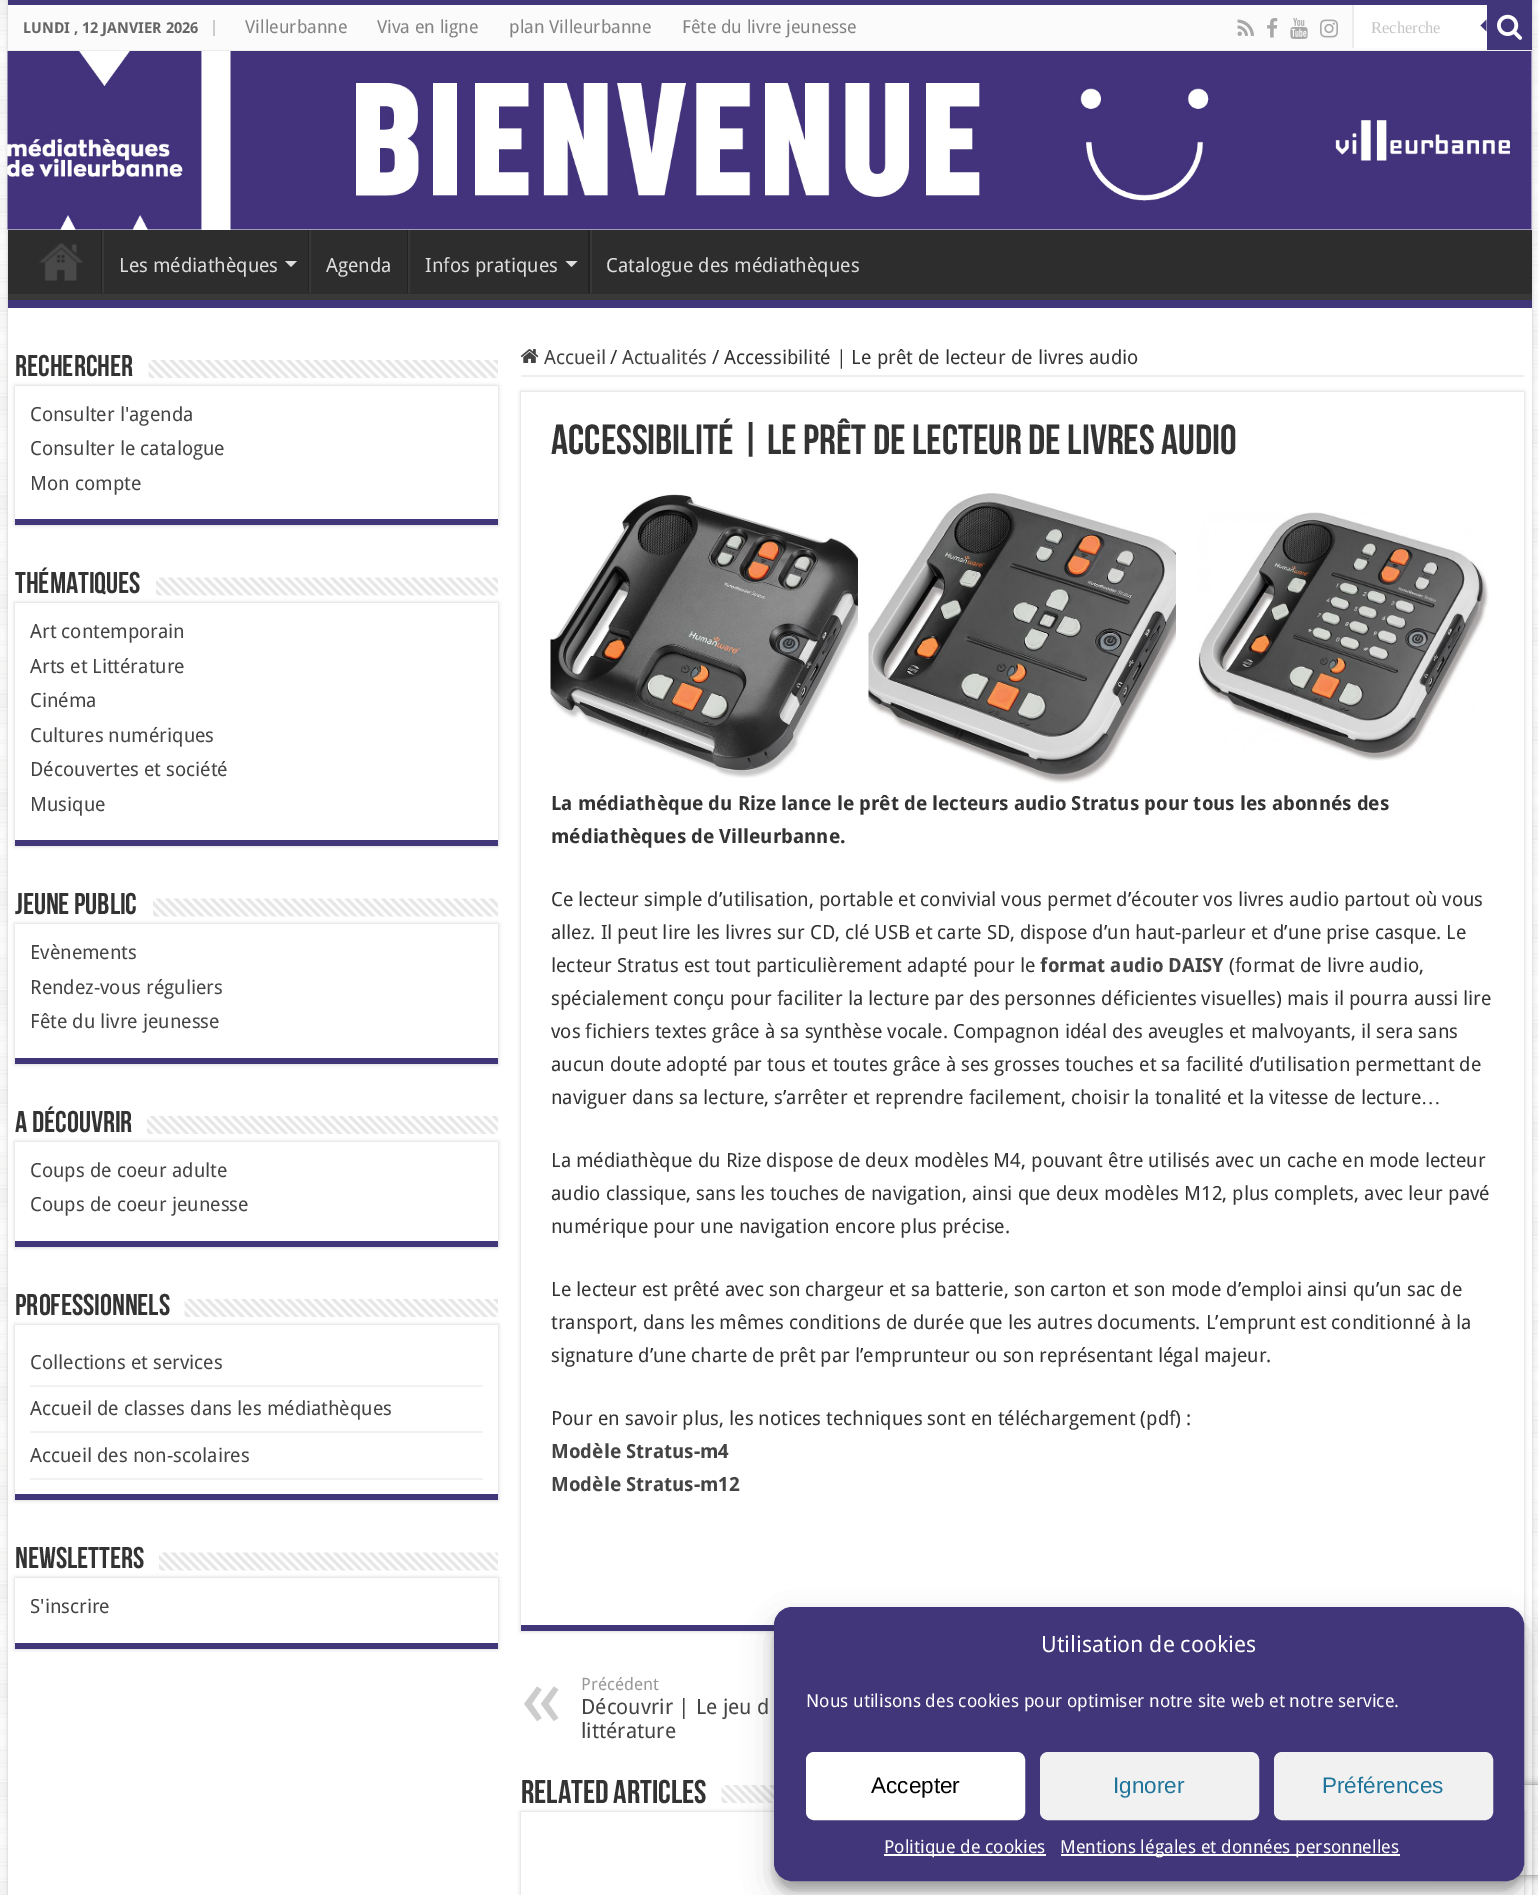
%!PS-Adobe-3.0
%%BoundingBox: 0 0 1538 1895
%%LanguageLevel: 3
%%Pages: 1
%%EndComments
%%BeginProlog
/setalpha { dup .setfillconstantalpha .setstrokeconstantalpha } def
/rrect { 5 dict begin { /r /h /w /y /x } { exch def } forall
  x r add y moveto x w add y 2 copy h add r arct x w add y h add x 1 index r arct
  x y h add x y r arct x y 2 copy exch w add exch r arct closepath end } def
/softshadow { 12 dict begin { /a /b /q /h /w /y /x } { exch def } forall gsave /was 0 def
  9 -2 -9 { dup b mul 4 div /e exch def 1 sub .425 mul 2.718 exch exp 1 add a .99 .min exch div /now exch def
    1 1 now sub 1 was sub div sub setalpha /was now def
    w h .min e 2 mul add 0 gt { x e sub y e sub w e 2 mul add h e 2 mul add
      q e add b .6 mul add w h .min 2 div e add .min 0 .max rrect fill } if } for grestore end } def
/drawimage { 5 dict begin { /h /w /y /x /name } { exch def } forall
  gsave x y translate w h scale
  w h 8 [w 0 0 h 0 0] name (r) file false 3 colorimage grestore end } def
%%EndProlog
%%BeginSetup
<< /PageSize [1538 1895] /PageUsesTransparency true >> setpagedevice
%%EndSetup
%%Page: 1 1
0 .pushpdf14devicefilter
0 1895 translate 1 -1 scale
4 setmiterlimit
1 setgray
0 0 1538 1895 rectfill
(images/1.raw) 0 0 1538 1895 drawimage
0.792 setgray
8 0 1524 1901 0 2 1 softshadow
1 setgray
8 52 1524 1843 rectfill
0.251 0.212 0.475 setrgbcolor
8 0 1524 5 rectfill
0.984 setgray
8 5 1479 45 rectfill
0.925 setgray
8 50 1524 2 rectfill
0.8 setgray
213 20 2 16 rectfill
(images/2.raw) 1237 19 17 17 drawimage
(images/3.raw) 1267 18 11 20 drawimage
(images/4.raw) 1290 18 18 21 drawimage
(images/5.raw) 1320 19 18 19 drawimage
1 setgray
1354 5 133 43 rectfill
0.925 setgray
1352 5 2 43 rectfill
0.251 0.212 0.475 setrgbcolor
1487 5 45 45 rectfill
(images/6.raw) 1497 14 25 26 drawimage
newpath 1486.5 19.5 moveto 1486.5 31.5 lineto 1480.5 25.5 lineto closepath fill
(images/7.raw) 7 51 1525 179 drawimage
0.176 setgray
8 230 1524 64 rectfill
gsave
8 230 1524 70 rectclip
0.224 setgray
newpath -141 81 moveto 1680 81 lineto 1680 448 lineto -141 448 lineto closepath 6 220 moveto 1530 220 lineto 1531 220 1532 221 1532 222 curveto 1532 292 lineto 1532 293 1531 294 1530 294 curveto 6 294 lineto 5 294 4 293 4 292 curveto 4 222 lineto 4 221 5 220 6 220 curveto closepath eofill
grestore
0.251 0.212 0.475 setrgbcolor
8 300 1524 8 rectfill
(images/8.raw) 39 243 44 38 drawimage
0.133 setgray
101 230 1 63 rectfill
0.22 setgray
102 230 2 63 rectfill
0.867 setgray
newpath 285 261 moveto 297 261 lineto 291 267 lineto closepath fill
0.133 setgray
308 230 1 63 rectfill
0.22 setgray
309 230 2 63 rectfill
0.133 setgray
407 230 1 63 rectfill
0.22 setgray
408 230 2 63 rectfill
0.867 setgray
newpath 565.5 261 moveto 577.5 261 lineto 571.5 267 lineto closepath fill
0.133 setgray
588 230 2 63 rectfill
0.22 setgray
590 230 2 63 rectfill
(images/9.raw) 148 360 350 18 drawimage
gsave
newpath 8 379 moveto 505 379 lineto 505 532 lineto 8 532 lineto closepath 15 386 moveto 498 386 lineto 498 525 lineto 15 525 lineto closepath eoclip newpath
0.792 setgray
15 386 483 139 0 2 1 softshadow
grestore
0.251 0.212 0.475 setrgbcolor
15 519 483 6 rectfill
(images/10.raw) 156 577 342 19 drawimage
gsave
newpath 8 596 moveto 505 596 lineto 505 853 lineto 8 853 lineto closepath 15 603 moveto 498 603 lineto 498 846 lineto 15 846 lineto closepath eoclip newpath
0.792 setgray
15 603 483 243 0 2 1 softshadow
grestore
15 840 483 6 rectfill
(images/11.raw) 153 898 345 19 drawimage
0.792 setgray
15 924 483 140 0 2 1 softshadow
1 setgray
15 924 483 134 rectfill
0.251 0.212 0.475 setrgbcolor
15 1058 483 6 rectfill
(images/12.raw) 147 1116 351 18 drawimage
0.792 setgray
15 1142 483 105 0 2 1 softshadow
1 setgray
15 1142 483 99 rectfill
0.251 0.212 0.475 setrgbcolor
15 1241 483 6 rectfill
(images/13.raw) 184 1299 314 18 drawimage
gsave
newpath 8 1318 moveto 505 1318 lineto 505 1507 lineto 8 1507 lineto closepath 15 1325 moveto 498 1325 lineto 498 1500 lineto 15 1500 lineto closepath eoclip newpath
0.792 setgray
15 1325 483 175 0 2 1 softshadow
grestore
15 1494 483 6 rectfill
0.949 setgray
30 1385 453 2 rectfill
30 1431 453 2 rectfill
30 1478 453 2 rectfill
(images/14.raw) 159 1552 339 19 drawimage
0.792 setgray
15 1578 483 71 0 2 1 softshadow
1 setgray
15 1578 483 65 rectfill
0.251 0.212 0.475 setrgbcolor
15 1643 483 6 rectfill
0.933 setgray
521 375 1003 2 rectfill
(images/15.raw) 520 349 19 14 drawimage
0.792 setgray
521 392 1003 1239 0 2 1 softshadow
1 setgray
521 392 1003 1233 rectfill
0.251 0.212 0.475 setrgbcolor
521 1625 253 6 rectfill
(images/16.raw) 550 494 308 284 drawimage
(images/17.raw) 868 493 308 291 drawimage
(images/18.raw) 1198 512 291 249 drawimage
(images/19.raw) 721 1785 53 18 drawimage
gsave
newpath 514 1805 moveto 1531 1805 lineto 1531 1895 lineto 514 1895 lineto closepath 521 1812 moveto 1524 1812 lineto 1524 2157 lineto 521 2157 lineto closepath eoclip newpath
0.792 setgray
521 1812 1003 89 0 2 1 softshadow
grestore
0 setgray
774 1616 750 274 18 4.5 0.23 softshadow
774 1622 750 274 18 15 0.19 softshadow
gsave
newpath 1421 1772 moveto 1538 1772 lineto 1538 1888 lineto 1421 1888 lineto closepath 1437 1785 moveto 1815 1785 lineto 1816.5 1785 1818 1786.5 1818 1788 curveto 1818 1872 lineto 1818 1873.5 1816.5 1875 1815 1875 curveto 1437 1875 lineto 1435.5 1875 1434 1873.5 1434 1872 curveto 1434 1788 lineto 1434 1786.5 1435.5 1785 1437 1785 curveto closepath eoclip newpath
0.502 setgray
1434 1785 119 90 3 4 1 softshadow
grestore
0.251 0.212 0.475 setrgbcolor
775 1608 748 272 17 rrect gsave fill grestore
2 setlinewidth
stroke
1 setgray
807 1753 217 66 7 rrect gsave fill grestore
stroke
0.945 setgray
1041 1753 217 66 7 rrect gsave fill grestore
stroke
1275 1753 217 66 7 rrect gsave fill grestore
stroke
1 setgray
884 1854 162 2 rectfill
1061 1854 339 2 rectfill
/DroidSans-Bold [15 0 0 -15 0 0] selectfont
0.4 setgray
23 33 moveto (LUNDI , 12 JANVIER 2026) show
/DroidSans-Regular [18 0 0 -18 0 0] selectfont
0.514 setgray
245 33 moveto (Villeurbanne) show
377 33 moveto (Viva en ligne) show
509 33 moveto (plan Villeurbanne) show
682 33 moveto (Fête du livre jeunesse) show
/LiberationSerif-Regular [16.5 0 0 -16.5 0 0] selectfont
0.773 setgray
1371 33 moveto (Recherche) show
/DroidSans-Regular [19.5 0 0 -19.5 0 0] selectfont
0.867 setgray
119 272 moveto (Les médiathèques) show
326 272 moveto (Agenda) show
425 272 moveto (Infos pratiques) show
606 272 moveto (Catalogue des médiathèques) show
/BebasNeue-Bold [30 0 0 -30 0 0] selectfont
0.2 setgray
15 376 moveto (Rechercher) show
/DroidSans-Regular [19.5 0 0 -19.5 0 0] selectfont
0.267 setgray
30 421 moveto (Consulter l'agenda) show
30 455 moveto (Consulter le catalogue) show
30 490 moveto (Mon compte) show
/BebasNeue-Bold [30 0 0 -30 0 0] selectfont
0.2 setgray
15 593 moveto (Thématiques) show
/DroidSans-Regular [19.5 0 0 -19.5 0 0] selectfont
0.267 setgray
30 638 moveto (Art contemporain) show
30 673 moveto (Arts et Littérature) show
30 707 moveto (Cinéma) show
30 742 moveto (Cultures numériques) show
30 776 moveto (Découvertes et société) show
30 811 moveto (Musique) show
/BebasNeue-Bold [30 0 0 -30 0 0] selectfont
0.2 setgray
15 914 moveto (Jeune public) show
/DroidSans-Regular [19.5 0 0 -19.5 0 0] selectfont
0.267 setgray
30 959 moveto (Evènements) show
30 994 moveto (Rendez-vous réguliers) show
30 1028 moveto (Fête du livre jeunesse) show
/BebasNeue-Bold [30 0 0 -30 0 0] selectfont
0.2 setgray
15 1132 moveto (A découvrir) show
/DroidSans-Regular [19.5 0 0 -19.5 0 0] selectfont
0.267 setgray
30 1177 moveto (Coups de coeur adulte) show
30 1211 moveto (Coups de coeur jeunesse) show
/BebasNeue-Bold [30 0 0 -30 0 0] selectfont
0.2 setgray
15 1315 moveto (Professionnels) show
/DroidSans-Regular [19.5 0 0 -19.5 0 0] selectfont
0.267 setgray
30 1369 moveto (Collections et services) show
30 1415 moveto (Accueil de classes dans les médiathèques) show
30 1462 moveto (Accueil des non-scolaires) show
/BebasNeue-Bold [30 0 0 -30 0 0] selectfont
0.2 setgray
15 1568 moveto (Newsletters) show
/DroidSans-Regular [19.5 0 0 -19.5 0 0] selectfont
0.267 setgray
30 1613 moveto (S'inscrire) show
544 364 moveto (Accueil) show
0.2 setgray
610 364 moveto (/) show
0.267 setgray
622 364 moveto (Actualités) show
0.2 setgray
712 364 moveto (/) show
724 364 moveto (Accessibilité | Le prêt de lecteur de livres audio) show
/BebasNeue-Bold [42 0 0 -42 0 0] selectfont
551 454 moveto (Accessibilité | Le prêt de lecteur de livres audio) show
/DroidSans-Bold [19.5 0 0 -19.5 0 0] selectfont
551 810 moveto (La médiathèque du Rize lance le prêt de lecteurs audio Stratus pour tous les abonnés des) show
551 843 moveto (médiathèques de Villeurbanne.) show
/DroidSans-Regular [19.5 0 0 -19.5 0 0] selectfont
551 906 moveto (Ce lecteur simple d’utilisation, portable et convivial vous permet d’écouter vos livres audio partout où vous) show
551 939 moveto (allez. Il peut lire les livres sur CD, clé USB et carte SD, dispose d’un haut-parleur et d’une prise casque. Le) show
551 972 moveto (lecteur Stratus est tout particulièrement adapté pour le) show
/DroidSans-Bold [19.5 0 0 -19.5 0 0] selectfont
0.267 setgray
1040 972 moveto (format audio DAISY) show
/DroidSans-Regular [19.5 0 0 -19.5 0 0] selectfont
0.2 setgray
1229 972 moveto (\(format de livre audio,) show
551 1005 moveto (spécialement conçu pour faciliter la lecture par des personnes déficientes visuelles\) mais il pourra aussi lire) show
551 1038 moveto (vos fichiers textes grâce à sa synthèse vocale. Compagnon idéal des aveugles et malvoyants, il sera sans) show
551 1071 moveto (aucun doute adopté par tous et toutes grâce à ses grosses touches et sa facilité d’utilisation permettant de) show
551 1104 moveto (naviguer dans sa lecture, s’arrêter et reprendre facilement, choisir la tonalité et la vitesse de lecture) show
/LiberationSerif-Regular [19.5 0 0 -19.5 0 0] selectfont
1421 1104 moveto (…) show
/DroidSans-Regular [19.5 0 0 -19.5 0 0] selectfont
551 1167 moveto (La médiathèque du Rize dispose de deux modèles M4, pouvant être utilisés avec un cache en mode lecteur) show
551 1200 moveto (audio classique, sans les touches de navigation, ainsi que deux modèles M12, plus complets, avec leur pavé) show
551 1233 moveto (numérique pour une navigation encore plus précise.) show
551 1296 moveto (Le lecteur est prêté avec son chargeur et sa batterie, son carton et son mode d’emploi ainsi qu’un sac de) show
551 1329 moveto (transport, dans les mêmes conditions de durée que les autres documents. L’emprunt est conditionné à la) show
551 1362 moveto (signature d’une charte de prêt par l’emprunteur ou son représentant légal majeur.) show
551 1425 moveto (Pour en savoir plus, les notices techniques sont en téléchargement \(pdf\) :) show
/DroidSans-Bold [19.5 0 0 -19.5 0 0] selectfont
0.267 setgray
551 1458 moveto (Modèle Stratus-m4) show
551 1491 moveto (Modèle Stratus-m12) show
/DroidSans-Regular [17 0 0 -17 0 0] selectfont
0.6 setgray
581 1690 moveto (Précédent) show
/DroidSans-Regular [84 0 0 -84 0 0] selectfont
0.8 setgray
521 1726 moveto («) show
/DroidSans-Regular [21 0 0 -21 0 0] selectfont
0.267 setgray
581 1714 moveto (Découvrir | Le jeu d) show
581 1738 moveto (littérature) show
/BebasNeue-Bold [33 0 0 -33 0 0] selectfont
0.2 setgray
521 1803 moveto (Related Articles) show
/DroidSans-Regular [22.5 0 0 -22.5 0 0] selectfont
1 setgray
1041 1652 moveto (Utilisation de cookies) show
/DroidSans-Regular [18 0 0 -18 0 0] selectfont
806 1707 moveto (Nous utilisons des cookies pour optimiser notre site web et notre service.) show
/LiberationSans-Regular [22.5 0 0 -22.5 0 0] selectfont
0 setgray
871 1793 moveto (Accepter) show
0.129 0.459 0.608 setrgbcolor
1113 1793 moveto (Ignorer) show
1322 1793 moveto (Préférences) show
/DroidSans-Regular [18 0 0 -18 0 0] selectfont
1 setgray
884 1853 moveto (Politique de cookies) show
1060 1853 moveto (Mentions légales et données personnelles) show
.poppdf14devicefilter showpage
%%EOF
